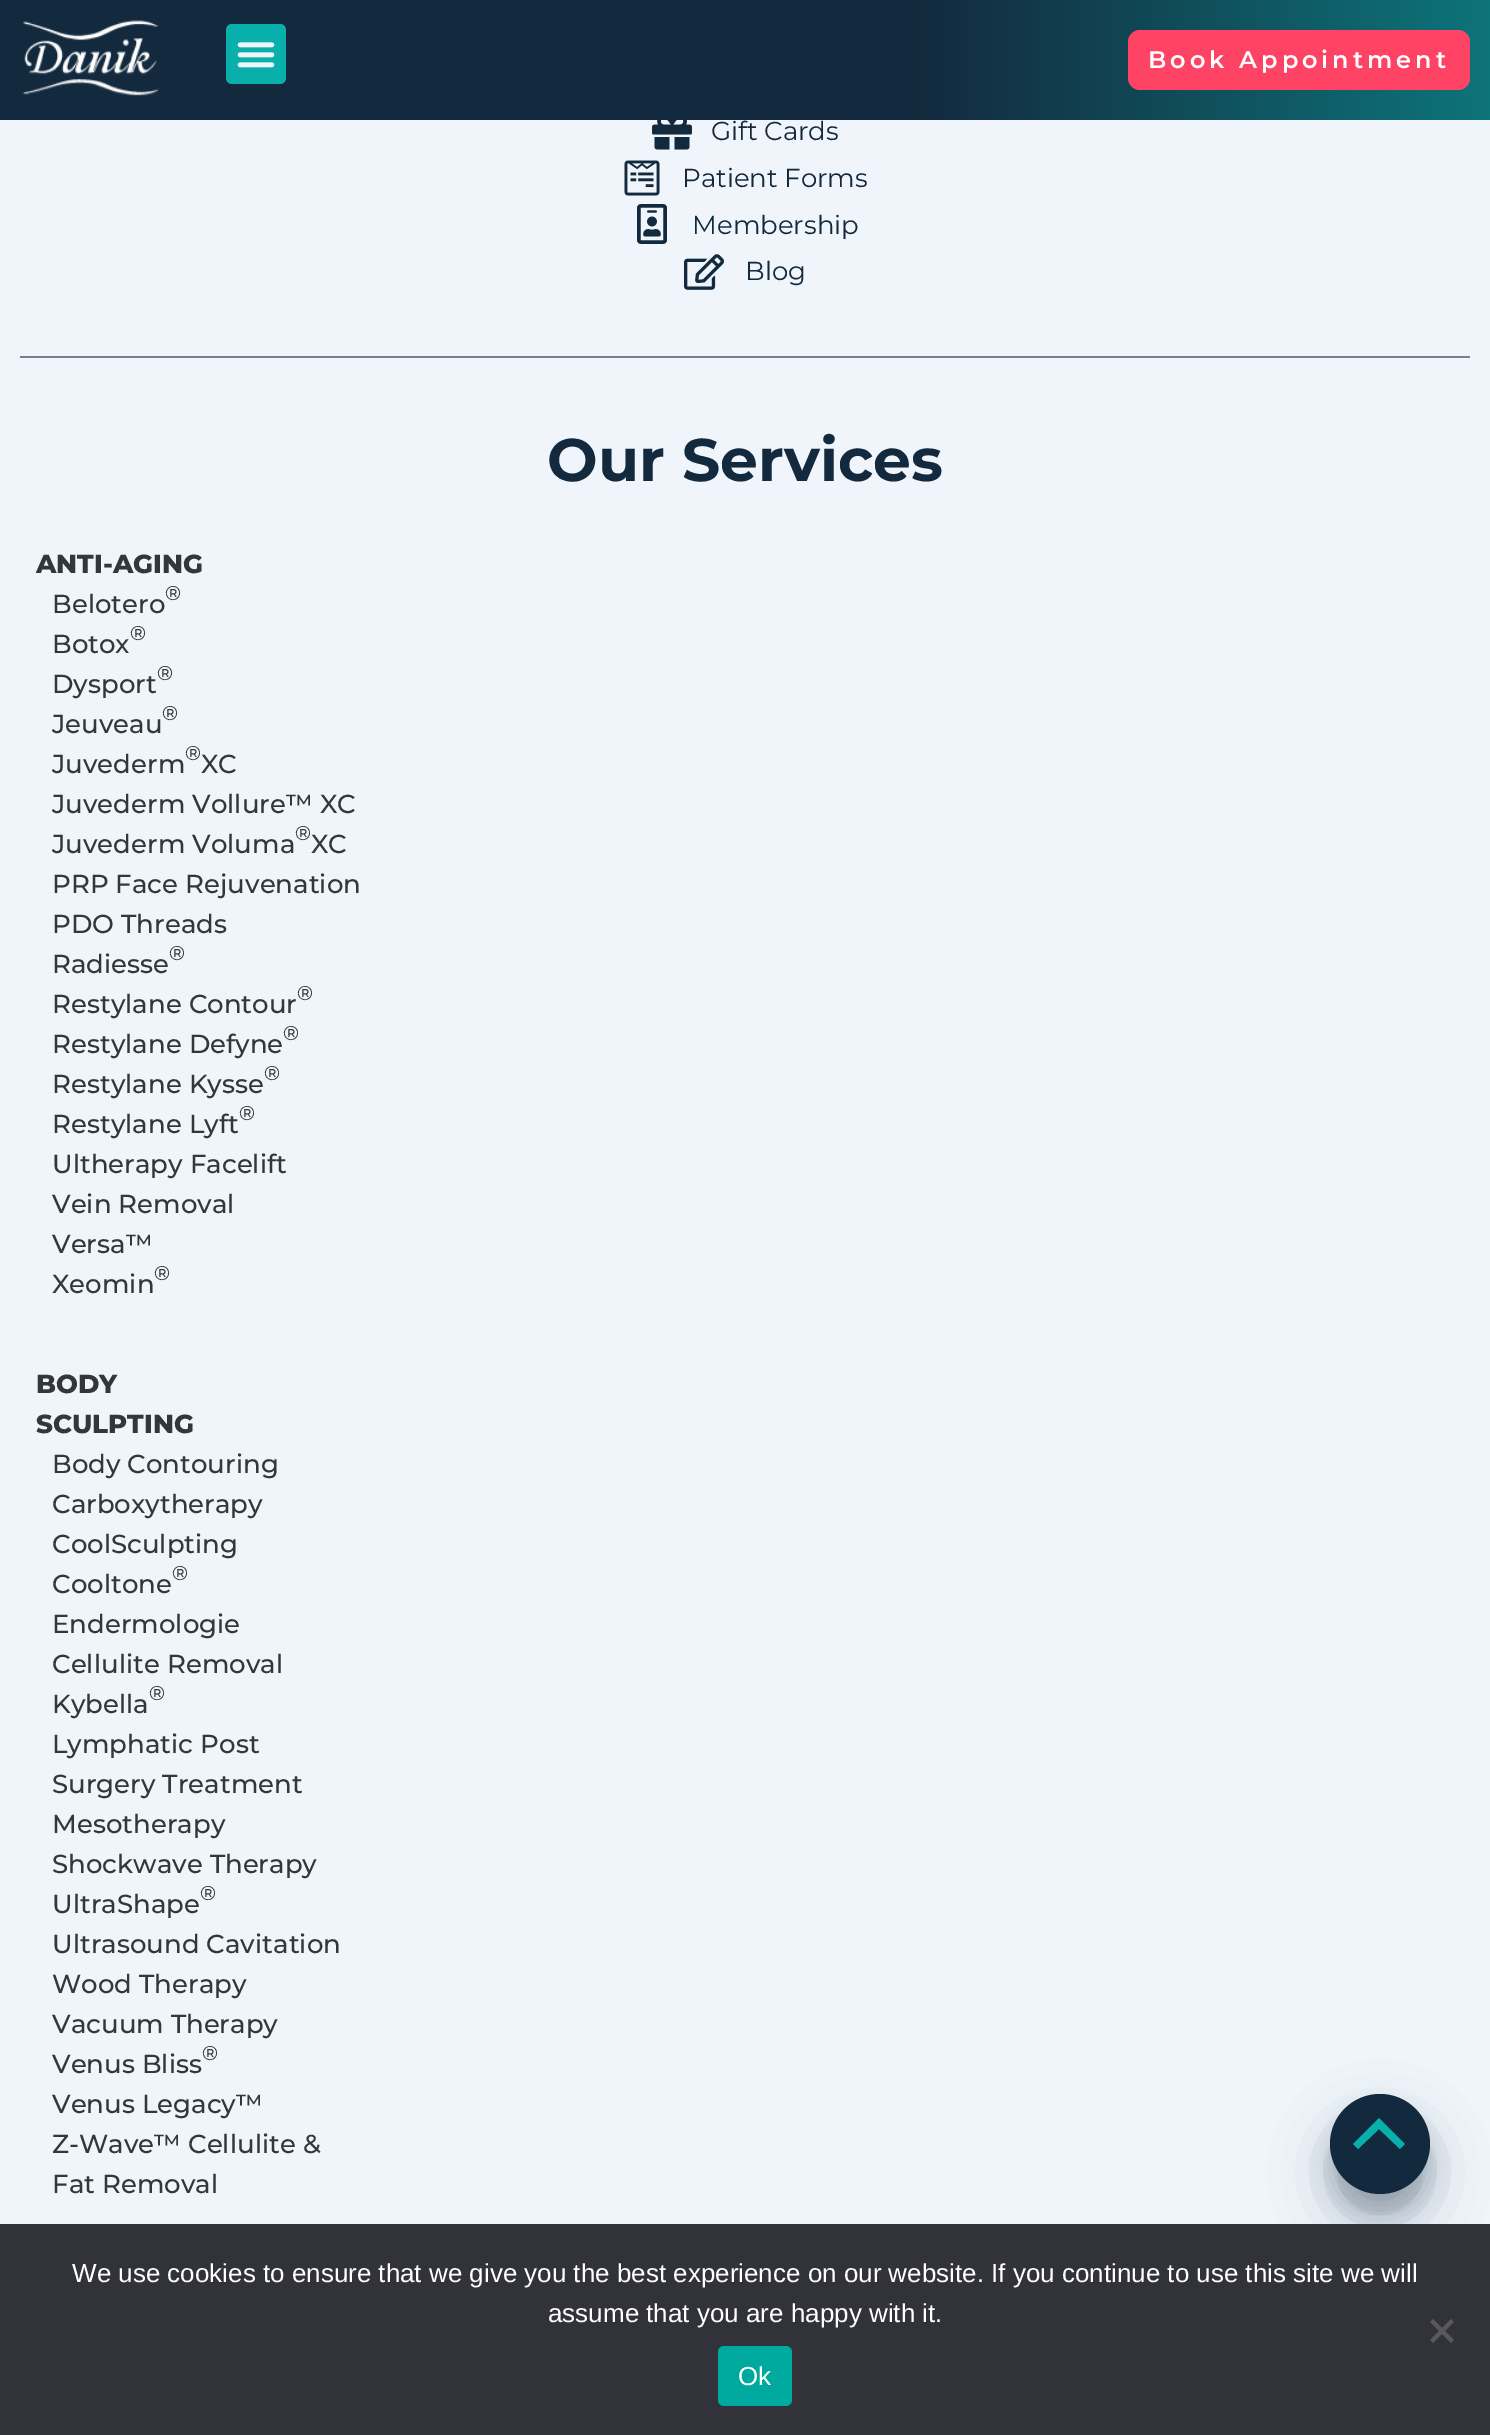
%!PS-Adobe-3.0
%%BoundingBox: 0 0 1490 2435
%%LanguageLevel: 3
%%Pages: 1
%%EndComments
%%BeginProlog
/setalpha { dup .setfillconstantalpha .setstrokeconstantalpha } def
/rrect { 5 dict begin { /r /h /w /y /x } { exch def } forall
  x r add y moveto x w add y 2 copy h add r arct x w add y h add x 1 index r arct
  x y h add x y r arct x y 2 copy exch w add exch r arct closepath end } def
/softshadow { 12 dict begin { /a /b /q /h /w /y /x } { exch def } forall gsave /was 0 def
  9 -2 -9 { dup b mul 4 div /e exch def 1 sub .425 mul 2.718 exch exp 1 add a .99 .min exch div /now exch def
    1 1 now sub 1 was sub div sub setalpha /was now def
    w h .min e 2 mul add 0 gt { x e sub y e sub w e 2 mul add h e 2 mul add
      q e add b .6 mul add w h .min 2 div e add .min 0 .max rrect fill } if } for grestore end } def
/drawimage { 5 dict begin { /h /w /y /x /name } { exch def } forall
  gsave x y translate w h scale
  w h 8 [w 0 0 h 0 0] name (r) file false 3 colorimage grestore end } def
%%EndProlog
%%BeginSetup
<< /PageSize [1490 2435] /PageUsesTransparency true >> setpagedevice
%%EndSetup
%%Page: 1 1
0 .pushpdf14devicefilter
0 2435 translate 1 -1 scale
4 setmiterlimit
0.937 0.961 0.98 setrgbcolor
0 0 1490 2435 rectfill
gsave newpath 0 0 moveto 1490 0 lineto 1490 120 lineto 0 120 lineto closepath clip newpath
<< /ShadingType 2 /ColorSpace /DeviceRGB /Coords [0 60 1490 60] /Extend [true true] /Function << /FunctionType 3 /Domain [0 1] /Functions [<< /FunctionType 2 /Domain [0 1] /C0 [0.075 0.161 0.239] /C1 [0.075 0.161 0.239] /N 1 >> << /FunctionType 2 /Domain [0 1] /C0 [0.075 0.161 0.239] /C1 [0.051 0.455 0.478] /N 1 >>] /Bounds [0.61] /Encode [0 1 0 1] >> >> shfill grestore
0.035 0.69 0.671 setrgbcolor
226 24 60 60 6 rrect fill
(images/1.raw) 237 42 38 26 drawimage
(images/2.raw) 22 20 137 76 drawimage
1 0.263 0.396 setrgbcolor
1128 30 342 60 12 rrect fill
(images/3.raw) 652 120 40 30 drawimage
(images/4.raw) 624 160 36 36 drawimage
(images/5.raw) 637 204 30 40 drawimage
(images/6.raw) 684 254 40 36 drawimage
0.447 0.506 0.557 setrgbcolor
20 356 1450 2 rectfill
0.075 0.161 0.239 setrgbcolor
1330 2114 100 100 50 10 0.22 softshadow
1330 2122 100 100 50 28 0.25 softshadow
newpath 1380 2144 50 0 360 arc closepath fill
0.035 0.69 0.671 setrgbcolor
newpath 1405 2144 moveto 1379 2118 lineto 1353 2144 lineto 1358 2149 lineto 1379 2129 lineto 1400 2149 lineto closepath fill
0.196 0.196 0.227 setrgbcolor
0 2224 1490 211 rectfill
0.349 0.349 0.365 setrgbcolor
newpath 1451 2319 moveto 1454 2322 lineto 1433 2343 lineto 1430 2340 lineto closepath fill
newpath 1430 2322 moveto 1433 2319 lineto 1454 2340 lineto 1451 2343 lineto closepath fill
0 0.663 0.616 setrgbcolor
718 2346 74 60 6 rrect fill
/Montserrat-SemiBold [24 0 0 -24 0 0] selectfont
1 setgray
1148 68 moveto 4 0 (Book Appointment) ashow
/Montserrat-Regular [26 0 0 -26 0 0] selectfont
0.075 0.161 0.239 setrgbcolor
711 140 moveto (Gift Cards) show
682 187 moveto (Patient Forms) show
692 234 moveto (Membership) show
745 280 moveto (Blog) show
/Montserrat-Bold [60 0 0 -60 0 0] selectfont
547 481 moveto (Our Services) show
/Montserrat-ExtraBold [26 0 0 -26 0 0] selectfont
0.2 0.216 0.239 setrgbcolor
36 573 moveto (ANTI-AGING) show
/Montserrat-Medium [26 0 0 -26 0 0] selectfont
52 613 moveto (Belotero) show
/Montserrat-Medium [20 0 0 -20 0 0] selectfont
165 600 moveto (®) show
/Montserrat-Medium [26 0 0 -26 0 0] selectfont
52 653 moveto (Botox) show
/Montserrat-Medium [20 0 0 -20 0 0] selectfont
130 640 moveto (®) show
/Montserrat-Medium [26 0 0 -26 0 0] selectfont
52 693 moveto (Dysport) show
/Montserrat-Medium [20 0 0 -20 0 0] selectfont
157 680 moveto (®) show
/Montserrat-Medium [26 0 0 -26 0 0] selectfont
52 733 moveto (Jeuveau) show
/Montserrat-Medium [20 0 0 -20 0 0] selectfont
162 720 moveto (®) show
/Montserrat-Medium [26 0 0 -26 0 0] selectfont
52 773 moveto (Juvederm) show
/Montserrat-Medium [20 0 0 -20 0 0] selectfont
185 760 moveto (®) show
/Montserrat-Medium [26 0 0 -26 0 0] selectfont
201 773 moveto (XC) show
52 813 moveto (Juvederm Vollure™ XC) show
52 853 moveto (Juvederm Voluma) show
/Montserrat-Medium [20 0 0 -20 0 0] selectfont
295 840 moveto (®) show
/Montserrat-Medium [26 0 0 -26 0 0] selectfont
311 853 moveto (XC) show
52 893 moveto (PRP Face Rejuvenation) show
52 933 moveto (PDO Threads) show
52 973 moveto (Radiesse) show
/Montserrat-Medium [20 0 0 -20 0 0] selectfont
169 960 moveto (®) show
/Montserrat-Medium [26 0 0 -26 0 0] selectfont
52 1013 moveto (Restylane Contour) show
/Montserrat-Medium [20 0 0 -20 0 0] selectfont
297 1000 moveto (®) show
/Montserrat-Medium [26 0 0 -26 0 0] selectfont
52 1053 moveto (Restylane Defyne) show
/Montserrat-Medium [20 0 0 -20 0 0] selectfont
283 1040 moveto (®) show
/Montserrat-Medium [26 0 0 -26 0 0] selectfont
52 1093 moveto (Restylane Kysse) show
/Montserrat-Medium [20 0 0 -20 0 0] selectfont
264 1080 moveto (®) show
/Montserrat-Medium [26 0 0 -26 0 0] selectfont
52 1133 moveto (Restylane Lyft) show
/Montserrat-Medium [20 0 0 -20 0 0] selectfont
239 1120 moveto (®) show
/Montserrat-Medium [26 0 0 -26 0 0] selectfont
52 1173 moveto (Ultherapy Facelift) show
52 1213 moveto (Vein Removal) show
52 1253 moveto (Versa™) show
52 1293 moveto (Xeomin) show
/Montserrat-Medium [20 0 0 -20 0 0] selectfont
154 1280 moveto (®) show
/Montserrat-ExtraBold [26 0 0 -26 0 0] selectfont
36 1393 moveto (BODY) show
36 1433 moveto (SCULPTING) show
/Montserrat-Medium [26 0 0 -26 0 0] selectfont
52 1473 moveto (Body Contouring) show
52 1513 moveto (Carboxytherapy) show
52 1553 moveto (CoolSculpting) show
52 1593 moveto (Cooltone) show
/Montserrat-Medium [20 0 0 -20 0 0] selectfont
172 1580 moveto (®) show
/Montserrat-Medium [26 0 0 -26 0 0] selectfont
52 1633 moveto (Endermologie) show
52 1673 moveto (Cellulite Removal) show
52 1713 moveto (Kybella) show
/Montserrat-Medium [20 0 0 -20 0 0] selectfont
149 1700 moveto (®) show
/Montserrat-Medium [26 0 0 -26 0 0] selectfont
52 1753 moveto (Lymphatic Post) show
52 1793 moveto (Surgery Treatment) show
52 1833 moveto (Mesotherapy) show
52 1873 moveto (Shockwave Therapy) show
52 1913 moveto (UltraShape) show
/Montserrat-Medium [20 0 0 -20 0 0] selectfont
200 1900 moveto (®) show
/Montserrat-Medium [26 0 0 -26 0 0] selectfont
52 1953 moveto (Ultrasound Cavitation) show
52 1993 moveto (Wood Therapy) show
52 2033 moveto (Vacuum Therapy) show
52 2073 moveto (Venus Bliss) show
/Montserrat-Medium [20 0 0 -20 0 0] selectfont
202 2060 moveto (®) show
/Montserrat-Medium [26 0 0 -26 0 0] selectfont
52 2113 moveto (Venus Legacy™) show
52 2153 moveto (Z-Wave™ Cellulite &) show
52 2193 moveto (Fat Removal) show
/LiberationSans-Regular [26 0 0 -26 0 0] selectfont
1 setgray
72 2282 moveto (We use cookies to ensure that we give you the best experience on our website. If you continue to use this site we will) show
548 2322 moveto (assume that you are happy with it.) show
738 2385 moveto (Ok) show
.poppdf14devicefilter showpage
%%EOF
